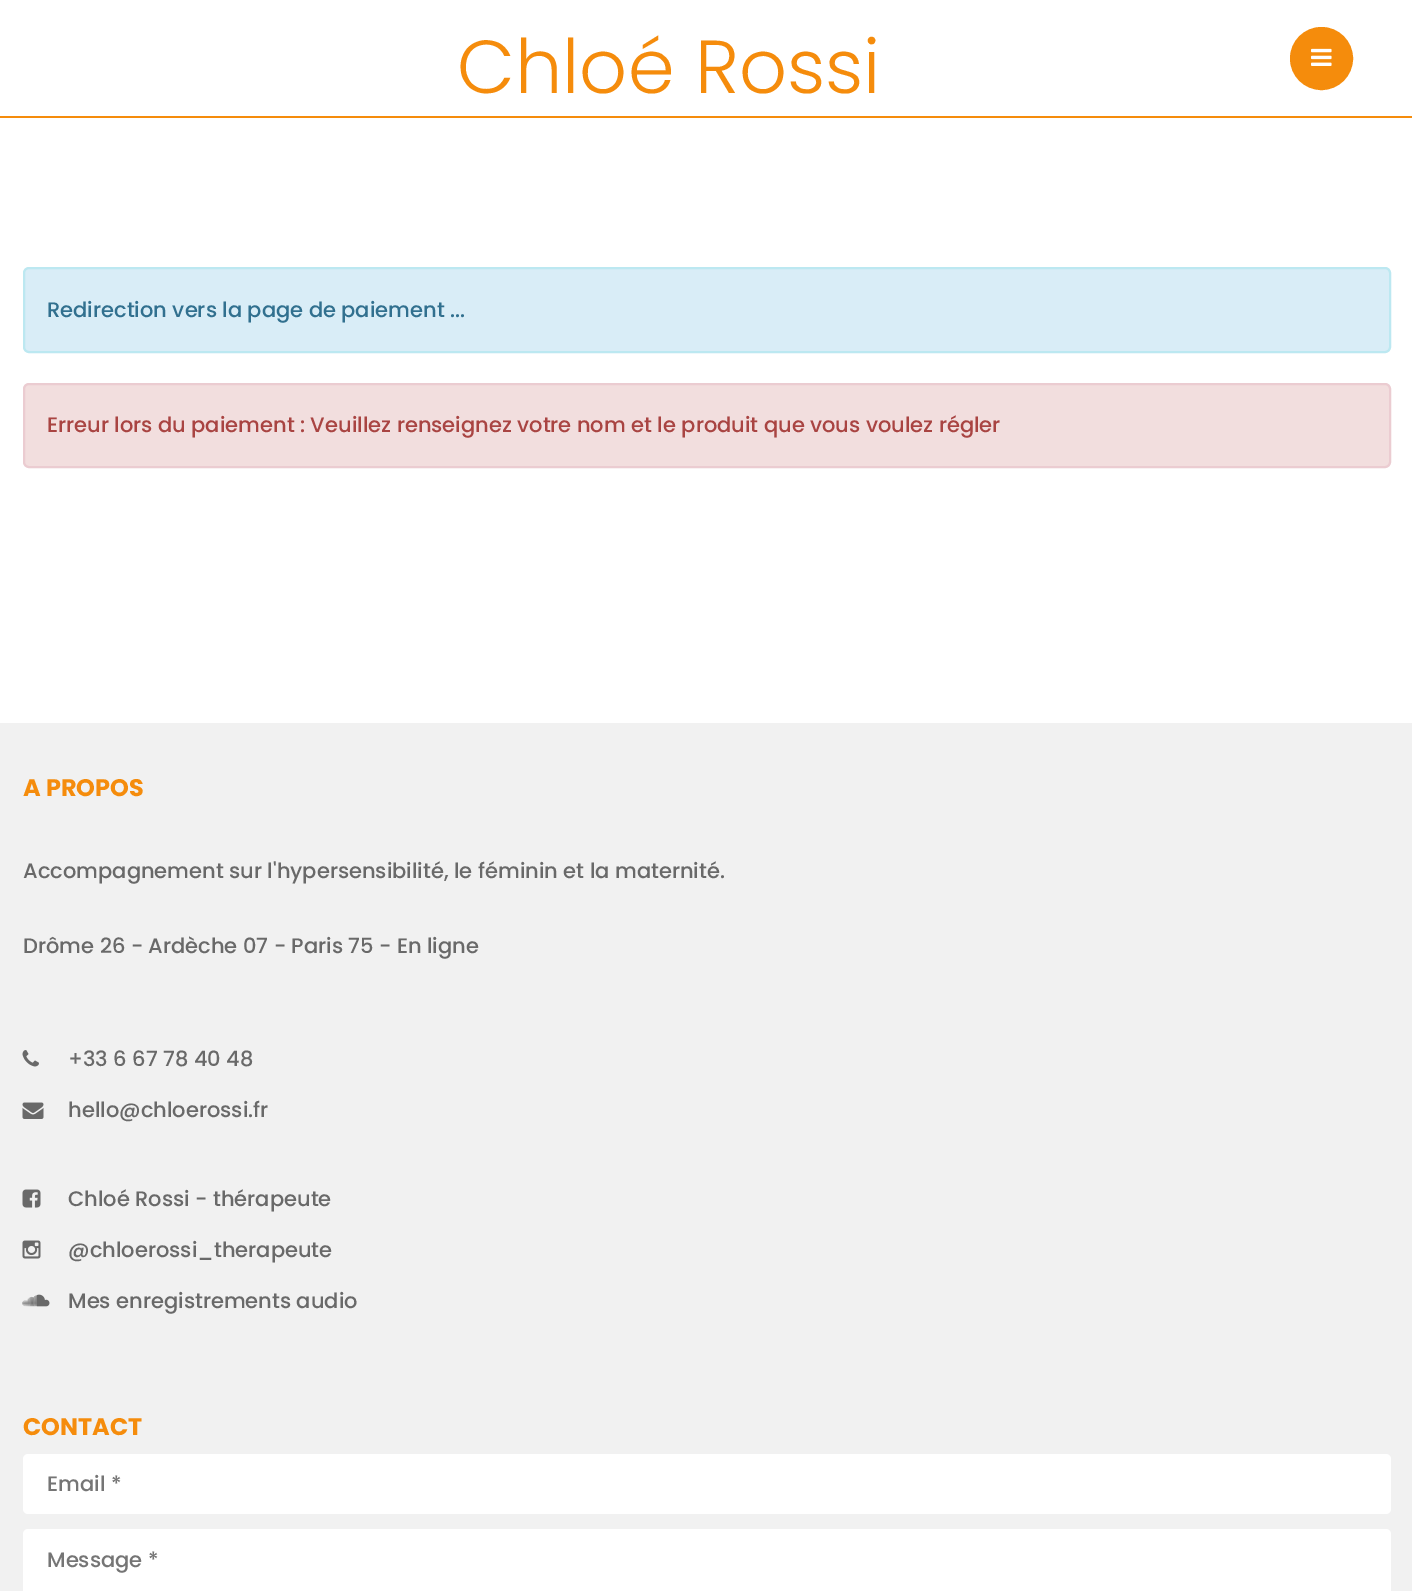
%!PS-Adobe-3.0
%%BoundingBox: 0 0 1412 1591
%%LanguageLevel: 3
%%Pages: 1
%%EndComments
%%BeginProlog
/rrect { 5 dict begin { /r /h /w /y /x } { exch def } forall
  x r add y moveto x w add y 2 copy h add r arct x w add y h add x 1 index r arct
  x y h add x y r arct x y 2 copy exch w add exch r arct closepath end } def
/drawimage { 5 dict begin { /h /w /y /x /name } { exch def } forall
  gsave x y translate w h scale
  w h 8 [w 0 0 h 0 0] name (r) file false 3 colorimage grestore end } def
%%EndProlog
%%BeginSetup
<< /PageSize [1412 1591] >> setpagedevice
%%EndSetup
%%Page: 1 1
0 1591 translate 1 -1 scale
4 setmiterlimit
1 setgray
0 0 1412 1591 rectfill
0.961 0.549 0.047 setrgbcolor
0 116 1412 2 rectfill
newpath 1321.5 58.5 30.5 0 360 arc closepath gsave fill grestore
2 setlinewidth
stroke
(images/1.raw) 1311 48 21 18 drawimage
0.851 0.929 0.969 setrgbcolor
24 268 1366 84 5 rrect gsave fill grestore
0.737 0.91 0.945 setrgbcolor
stroke
0.949 0.871 0.871 setrgbcolor
24 384 1366 83 5 rrect gsave fill grestore
0.922 0.8 0.82 setrgbcolor
stroke
0.945 setgray
0 723 1412 868 rectfill
(images/2.raw) 22 1050 17 17 drawimage
(images/3.raw) 22 1102 22 17 drawimage
(images/4.raw) 22 1189 19 19 drawimage
(images/5.raw) 22 1240 19 19 drawimage
(images/6.raw) 22 1294 28 13 drawimage
1 setgray
23 1454 1368 60 5 rrect fill
23 1529 1368 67 5 rrect fill
/Poppins-Light [75 0 0 -75 0 0] selectfont
0.961 0.549 0.047 setrgbcolor
457 93 moveto (Chloé Rossi) show
/Poppins-Medium [21 0 0 -21 0 0] selectfont
0.192 0.439 0.561 setrgbcolor
47 317 moveto (Redirection vers la page de paiement ...) show
0.663 0.267 0.259 setrgbcolor
47 432 moveto (Erreur lors du paiement : Veuillez renseignez votre nom et le produit que vous voulez régler) show
/Poppins-Bold [24 0 0 -24 0 0] selectfont
0.961 0.549 0.047 setrgbcolor
23 796 moveto (A PROPOS) show
/Poppins-Medium [21 0 0 -21 0 0] selectfont
0.412 setgray
23 878 moveto (Accompagnement sur l'hypersensibilité, le féminin et la maternité.) show
23 953 moveto (Drôme 26 - Ardèche 07 - Paris 75 - En ligne) show
68 1066 moveto (+33 6 67 78 40 48) show
68 1117 moveto (hello@chloerossi.fr) show
68 1206 moveto (Chloé Rossi - thérapeute) show
68 1257 moveto (@chloerossi_therapeute) show
68 1308 moveto (Mes enregistrements audio) show
/Poppins-Bold [24 0 0 -24 0 0] selectfont
0.961 0.549 0.047 setrgbcolor
23 1435 moveto (CONTACT) show
/Poppins-Medium [21 0 0 -21 0 0] selectfont
0.459 setgray
47 1491 moveto (Email *) show
47 1567 moveto (Message *) show
showpage
%%EOF
